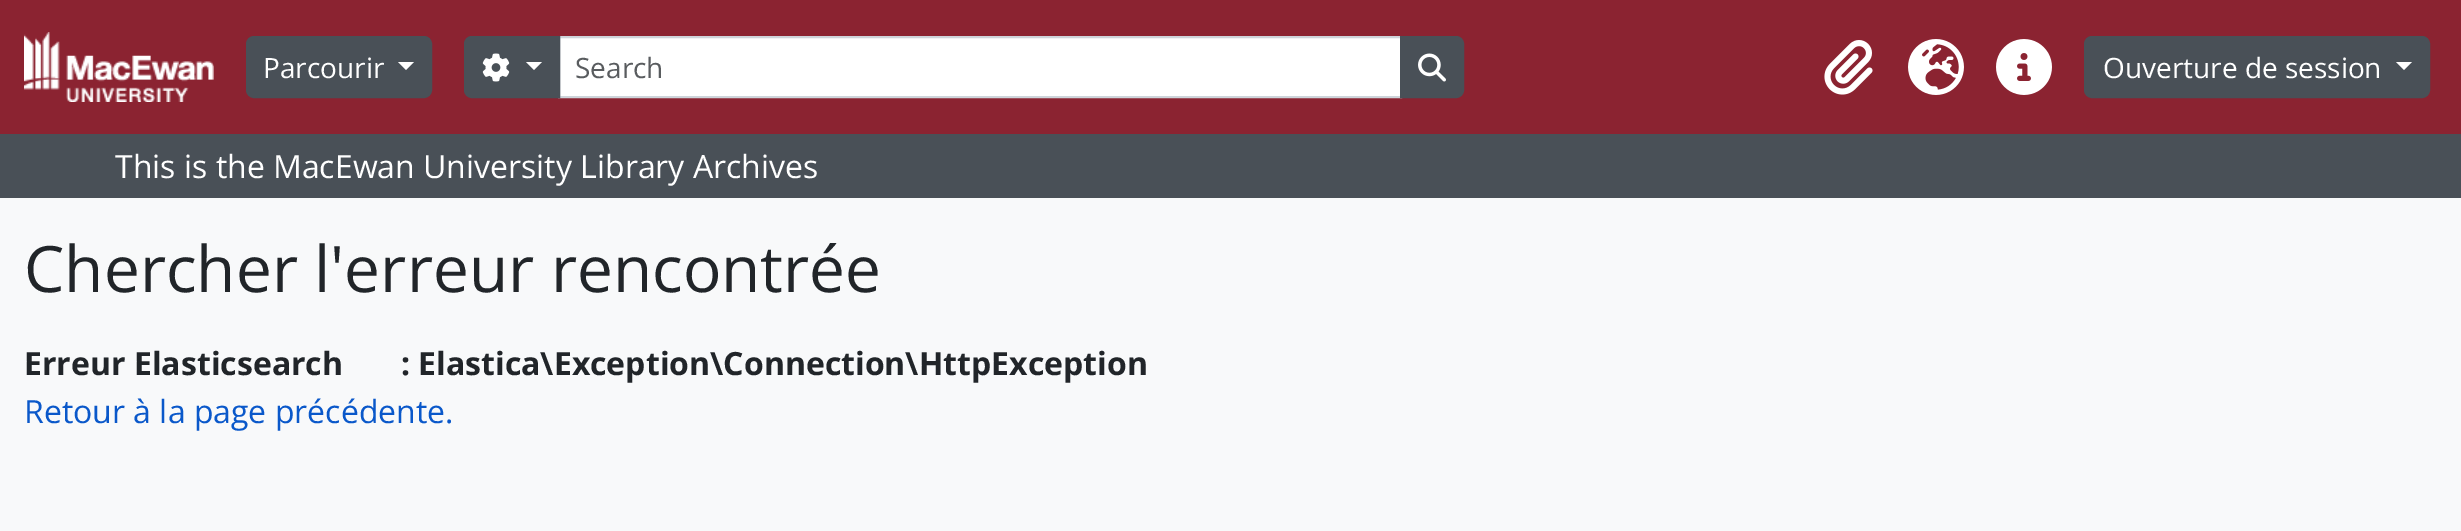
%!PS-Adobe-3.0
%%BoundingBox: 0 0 2461 531
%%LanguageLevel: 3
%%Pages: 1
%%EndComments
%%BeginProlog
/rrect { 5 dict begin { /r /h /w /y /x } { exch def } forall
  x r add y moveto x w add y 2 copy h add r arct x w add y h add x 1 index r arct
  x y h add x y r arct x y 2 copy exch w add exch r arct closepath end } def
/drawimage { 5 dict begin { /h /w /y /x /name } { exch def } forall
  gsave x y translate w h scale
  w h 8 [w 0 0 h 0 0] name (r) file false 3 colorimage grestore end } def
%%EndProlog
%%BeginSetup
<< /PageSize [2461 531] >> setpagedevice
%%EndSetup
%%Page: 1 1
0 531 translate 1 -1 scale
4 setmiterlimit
0.973 0.976 0.98 setrgbcolor
0 0 2461 531 rectfill
0.545 0.137 0.192 setrgbcolor
0 0 2461 134 rectfill
(images/1.raw) 24 32 190 70 drawimage
0.286 0.314 0.341 setrgbcolor
247 37 184 60 7 rrect gsave fill grestore
2 setlinewidth
stroke
1 setgray
newpath 398 62 moveto 414 62 lineto 406 70 lineto closepath fill
newpath 559 37 moveto 1401 37 lineto 1401 97 lineto 559 97 lineto closepath gsave fill grestore
0.808 0.831 0.855 setrgbcolor
stroke
0.286 0.314 0.341 setrgbcolor
newpath 472 37 moveto 559 37 lineto 559 97 lineto 472 97 lineto 468 97 465 94 465 90 curveto 465 44 lineto 465 40 468 37 472 37 curveto closepath gsave fill grestore
stroke
(images/2.raw) 482 53 28 29 drawimage
1 setgray
newpath 526 62 moveto 542 62 lineto 534 70 lineto closepath fill
0.286 0.314 0.341 setrgbcolor
newpath 1401 37 moveto 1456 37 lineto 1460 37 1463 40 1463 44 curveto 1463 90 lineto 1463 94 1460 97 1456 97 curveto 1401 97 lineto closepath gsave fill grestore
stroke
(images/3.raw) 1418 53 28 29 drawimage
(images/4.raw) 1824 40 49 55 drawimage
(images/5.raw) 1908 39 56 56 drawimage
(images/6.raw) 1996 39 56 56 drawimage
2085 37 344 60 7 rrect gsave fill grestore
stroke
1 setgray
newpath 2396 62 moveto 2412 62 lineto 2404 70 lineto closepath fill
0.286 0.314 0.341 setrgbcolor
0 134 2461 64 rectfill
/OpenSans-Regular [28 0 0 -28 0 0] selectfont
1 setgray
263 78 moveto (Parcourir) show
0.349 0.361 0.373 setrgbcolor
575 78 moveto (Search) show
1 setgray
2103 78 moveto (Ouverture de session) show
/OpenSans-Regular [32 0 0 -32 0 0] selectfont
115 178 moveto (This is the MacEwan University Library Archives) show
/OpenSans-Regular [64 0 0 -64 0 0] selectfont
0.129 0.145 0.161 setrgbcolor
24 292 moveto (Chercher l'erreur rencontrée) show
/OpenSans-Bold [32 0 0 -32 0 0] selectfont
24 375 moveto (Erreur Elasticsearch : Elastica\\Exception\\Connection\\HttpException) show
/OpenSans-Regular [32 0 0 -32 0 0] selectfont
0.039 0.345 0.792 setrgbcolor
24 423 moveto (Retour à la page précédente.) show
showpage
%%EOF
